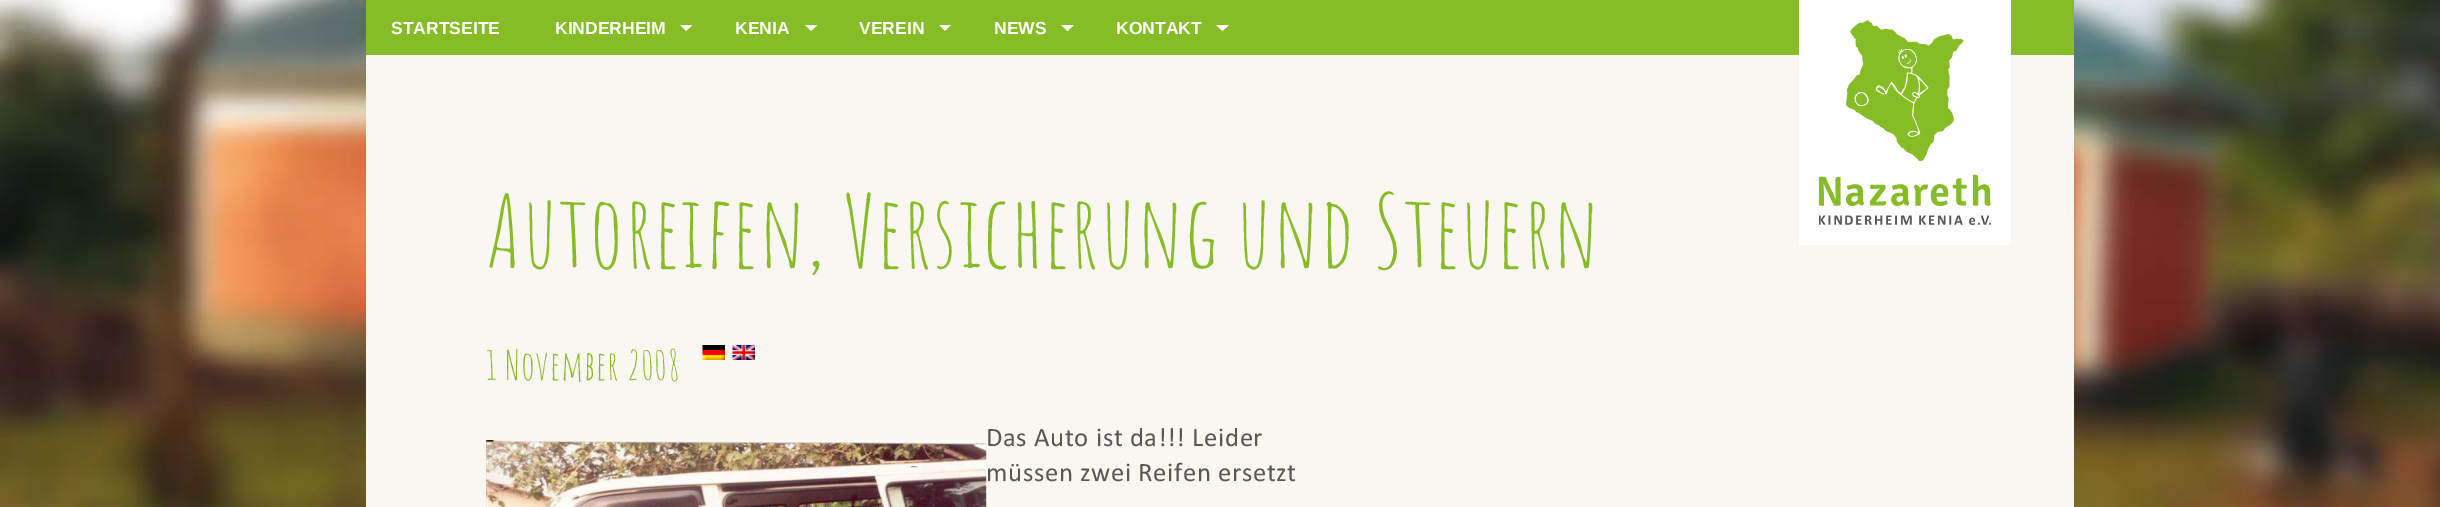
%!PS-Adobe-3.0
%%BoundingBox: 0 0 2440 507
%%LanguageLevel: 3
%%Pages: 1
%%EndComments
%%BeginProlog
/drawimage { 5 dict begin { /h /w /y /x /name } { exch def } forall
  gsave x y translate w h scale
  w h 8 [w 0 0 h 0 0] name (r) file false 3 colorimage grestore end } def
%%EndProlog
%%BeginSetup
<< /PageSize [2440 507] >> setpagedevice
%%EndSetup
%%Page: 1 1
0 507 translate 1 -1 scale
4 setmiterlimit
1 setgray
0 0 2440 507 rectfill
(images/1.raw) 0 0 2440 507 drawimage
0.525 0.737 0.145 setrgbcolor
366 0 1708 55 rectfill
1 setgray
newpath 680 25 moveto 692.5 25 lineto 686 31 lineto closepath fill
newpath 805 25 moveto 817.5 25 lineto 811 31 lineto closepath fill
newpath 939 25 moveto 951 25 lineto 945 31 lineto closepath fill
newpath 1061 25 moveto 1074 25 lineto 1067.5 31 lineto closepath fill
newpath 1216 25 moveto 1229 25 lineto 1222.5 31 lineto closepath fill
0.98 0.969 0.949 setrgbcolor
366 55 1708 452 rectfill
1 setgray
1799 0 212 245 rectfill
(images/2.raw) 1819 20 172 205 drawimage
(images/3.raw) 702 345 23 15 drawimage
(images/4.raw) 732 345 23 15 drawimage
(images/5.raw) 486 440 501 67 drawimage
/LiberationSans-Bold [17.5 0 0 -17.5 0 0] selectfont
391 34 moveto (STARTSEITE) show
555 34 moveto (KINDERHEIM) show
735 34 moveto (KENIA) show
859 34 moveto (VEREIN) show
994 34 moveto (NEWS) show
1116 34 moveto (KONTAKT) show
/AmaticSC-Regular [100 0 0 -100 0 0] selectfont
0.525 0.737 0.145 setrgbcolor
486 268 moveto 0.6 0 (Autoreifen, Versicherung und Steuern) ashow
/AmaticSC-Regular [40 0 0 -40 0 0] selectfont
486 380 moveto 0.6 0 (1 November 2008) ashow
/Calibri-Regular [26.75 0 0 -26.75 0 0] selectfont
0.341 0.341 0.337 setrgbcolor
986 446 moveto 0.6 0 (Das Auto ist da!!! Leider) ashow
986 481 moveto 0.6 0 (müssen zwei Reifen ersetzt) ashow
showpage
%%EOF
